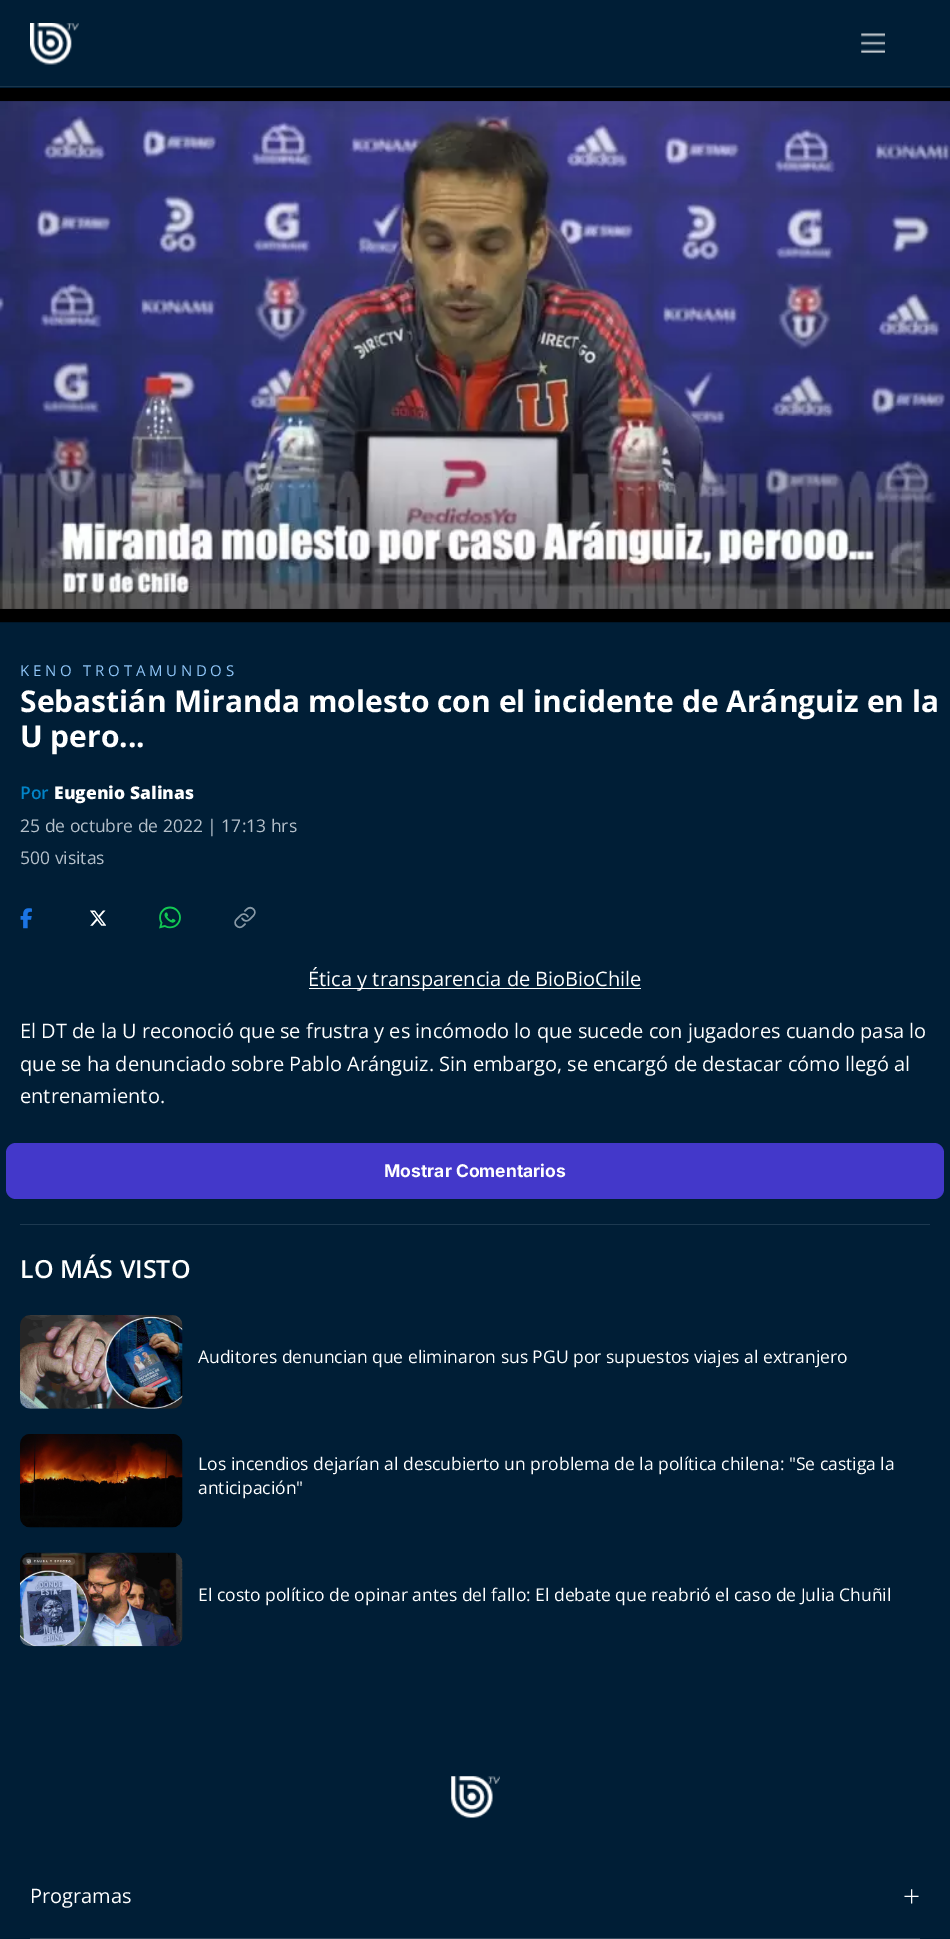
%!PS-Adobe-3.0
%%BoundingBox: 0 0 950 1939
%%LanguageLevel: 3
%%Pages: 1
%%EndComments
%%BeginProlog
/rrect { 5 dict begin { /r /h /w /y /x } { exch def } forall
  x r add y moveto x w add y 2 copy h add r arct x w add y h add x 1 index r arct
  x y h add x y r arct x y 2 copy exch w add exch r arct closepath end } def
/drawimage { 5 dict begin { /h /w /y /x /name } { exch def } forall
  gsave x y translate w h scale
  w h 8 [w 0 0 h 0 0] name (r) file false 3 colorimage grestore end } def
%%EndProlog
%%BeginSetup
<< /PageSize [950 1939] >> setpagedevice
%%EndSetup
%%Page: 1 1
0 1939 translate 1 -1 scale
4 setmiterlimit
0 0.118 0.212 setrgbcolor
0 0 950 1939 rectfill
0.102 0.208 0.29 setrgbcolor
0 86 950 1 rectfill
(images/1.raw) 30 23 49 42 drawimage
(images/2.raw) 861 33 24 20 drawimage
(images/3.raw) 0 88 950 535 drawimage
(images/4.raw) 20 908 12 21 drawimage
(images/5.raw) 90 910 16 16 drawimage
(images/6.raw) 159 906 22 23 drawimage
(images/7.raw) 234 906 22 23 drawimage
1 setgray
309 988 332 1 rectfill
0.263 0.22 0.792 setrgbcolor
6 1143 938 56 10 rrect fill
0.114 0.224 0.314 setrgbcolor
20 1224 910 1 rectfill
(images/8.raw) 20 1315 163 94 drawimage
(images/9.raw) 20 1434 163 94 drawimage
(images/10.raw) 20 1552 163 95 drawimage
(images/11.raw) 451 1776 49 42 drawimage
0.2 0.294 0.369 setrgbcolor
30 1938 890 1 rectfill
/OpenSans-Regular [15 0 0 -15 0 0] selectfont
0.565 0.776 0.973 setrgbcolor
20 676 moveto 3.75 0 (KENO TROTAMUNDOS) ashow
/OpenSans-Bold [30 0 0 -30 0 0] selectfont
1 setgray
20 712 moveto (Sebastián Miranda molesto con el incidente de Aránguiz en la) show
20 747 moveto (U pero...) show
/OpenSans-SemiBold [17.5 0 0 -17.5 0 0] selectfont
0.008 0.518 0.78 setrgbcolor
20 799 moveto (Por) show
/OpenSans-ExtraBold [17.5 0 0 -17.5 0 0] selectfont
1 setgray
54 799 moveto (Eugenio Salinas) show
/OpenSans-Regular [17.5 0 0 -17.5 0 0] selectfont
0.71 0.753 0.792 setrgbcolor
20 832 moveto (25 de octubre de 2022 | 17:13 hrs) show
20 864 moveto (500 visitas) show
/OpenSans-Regular [20 0 0 -20 0 0] selectfont
1 setgray
308 986 moveto (Ética y transparencia de BioBioChile) show
20 1038 moveto (El DT de la U reconoció que se frustra y es incómodo lo que sucede con jugadores cuando pasa lo) show
20 1071 moveto (que se ha denunciado sobre Pablo Aránguiz. Sin embargo, se encargó de destacar cómo llegó al) show
20 1103 moveto (entrenamiento.) show
/Inter-Bold [17.5 0 0 -17.5 0 0] selectfont
384 1177 moveto (Mostrar Comentarios) show
/OpenSans-SemiBold [25 0 0 -25 0 0] selectfont
20 1278 moveto (LO MÁS VISTO) show
/OpenSans-Regular [17.5 0 0 -17.5 0 0] selectfont
198 1363 moveto (Auditores denuncian que eliminaron sus PGU por supuestos viajes al extranjero) show
198 1470 moveto (Los incendios dejarían al descubierto un problema de la política chilena: "Se castiga la) show
198 1494 moveto (anticipación") show
198 1601 moveto (El costo político de opinar antes del fallo: El debate que reabrió el caso de Julia Chuñil) show
/OpenSans-Regular [20 0 0 -20 0 0] selectfont
30 1903 moveto (Programas) show
/OpenSans-Light [30 0 0 -30 0 0] selectfont
903 1907 moveto (+) show
showpage
%%EOF
